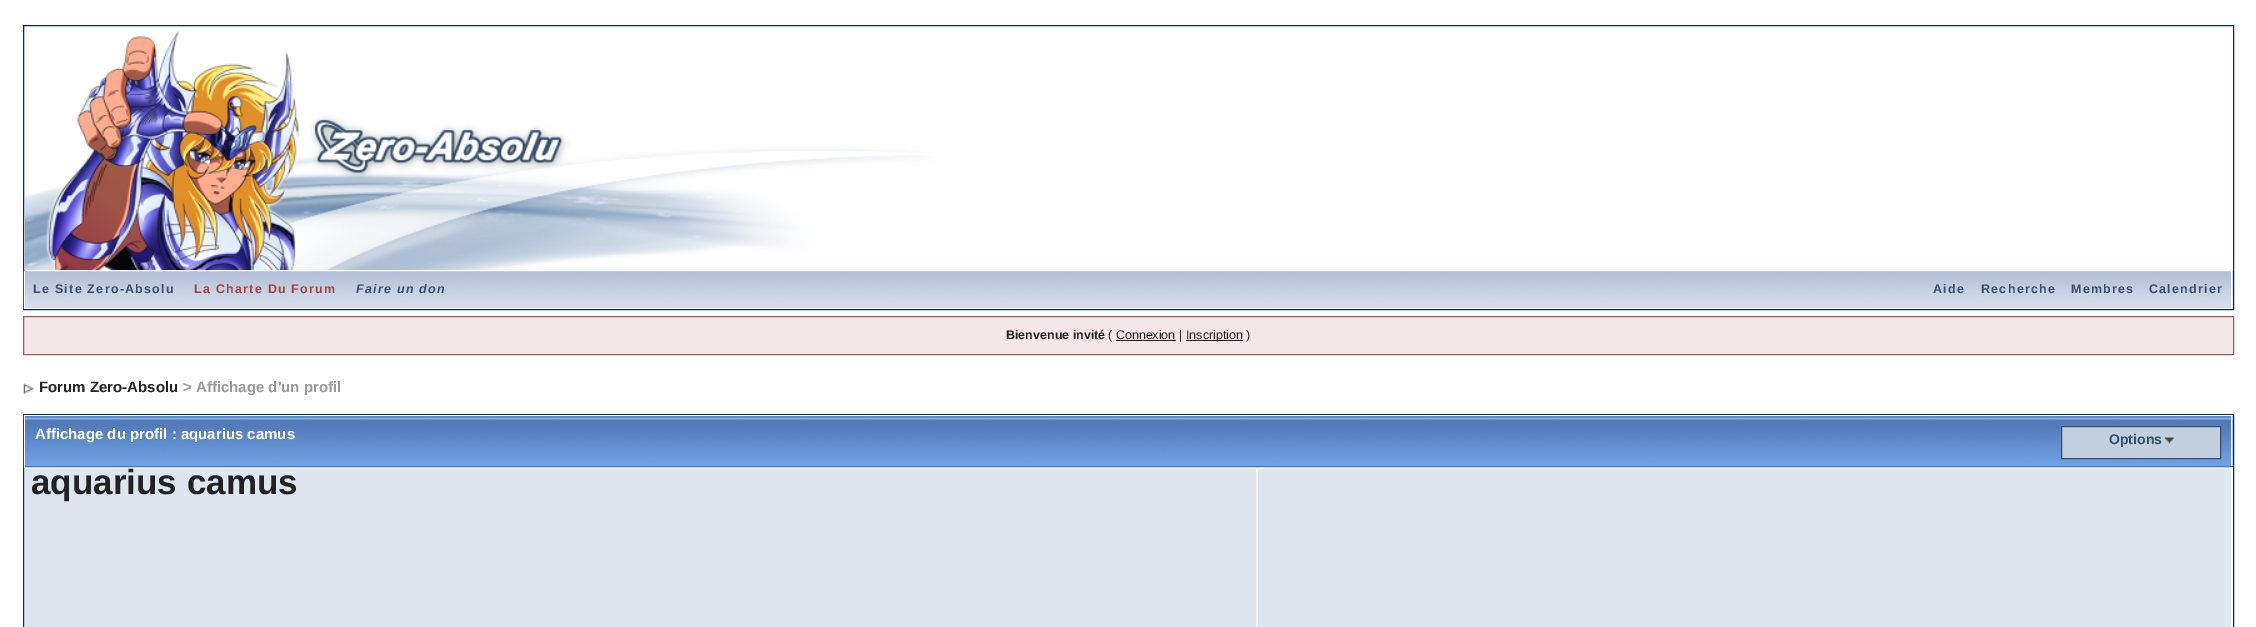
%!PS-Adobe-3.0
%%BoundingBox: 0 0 2256 627
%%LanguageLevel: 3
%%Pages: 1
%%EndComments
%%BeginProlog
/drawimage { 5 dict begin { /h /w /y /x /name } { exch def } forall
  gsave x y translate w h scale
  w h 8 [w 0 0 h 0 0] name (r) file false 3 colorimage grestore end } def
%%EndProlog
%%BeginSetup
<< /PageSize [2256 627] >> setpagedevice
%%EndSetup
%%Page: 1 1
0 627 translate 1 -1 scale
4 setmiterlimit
1 setgray
0 0 2256 627 rectfill
0.027 0.165 0.4 setrgbcolor
23.5 25.5 2210 284 rectstroke
(images/1.raw) 25 31 909 239 drawimage
(images/2.raw) 23 271 2210 38 drawimage
1 setgray
2231 271 1 38 rectfill
24 308 2209 1 rectfill
24 271 1 38 rectfill
0.957 0.906 0.918 setrgbcolor
newpath 23.5 316.5 moveto 2233.5 316.5 lineto 2233.5 354.5 lineto 23.5 354.5 lineto closepath gsave fill grestore
0.596 0.384 0.396 setrgbcolor
stroke
0.133 setgray
1186 340 57 1 rectfill
1116 340 60 1 rectfill
(images/3.raw) 23 383 11 11 drawimage
0.027 0.165 0.4 setrgbcolor
23.5 414.5 2210 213 rectstroke
(images/4.raw) 23 415 2210 53 drawimage
1 setgray
24 415 2209 1 rectfill
2231 415 1 53 rectfill
0.318 0.463 0.71 setrgbcolor
24 466 2209 1 rectfill
1 setgray
24 415 1 53 rectfill
0.761 0.812 0.875 setrgbcolor
newpath 2061.5 426.5 moveto 2220.5 426.5 lineto 2220.5 458.5 lineto 2061.5 458.5 lineto closepath gsave fill grestore
0.227 0.31 0.424 setrgbcolor
stroke
(images/5.raw) 2165 437 9 7 drawimage
0.875 0.902 0.937 setrgbcolor
25 469 1231 158 rectfill
1258 469 973 158 rectfill
/LiberationSans-Bold [12.5 0 0 -12.5 0 0] selectfont
0.227 0.31 0.424 setrgbcolor
33 293 moveto 1.25 0 (Le Site Zero-Absolu) ashow
0.667 0.251 0.251 setrgbcolor
194 293 moveto 1.25 0 (La Charte Du Forum) ashow
/LiberationSans-BoldItalic [12.5 0 0 -12.5 0 0] selectfont
0.227 0.31 0.424 setrgbcolor
356 293 moveto 1.25 0 (Faire un don) ashow
/LiberationSans-Bold [12.5 0 0 -12.5 0 0] selectfont
1933 293 moveto 1.25 0 (Aide) ashow
1981 293 moveto 1.25 0 (Recherche) ashow
2071 293 moveto 1.25 0 (Membres) ashow
2149 293 moveto 1.25 0 (Calendrier) ashow
0.133 setgray
1006 339 moveto (Bienvenue invité) show
/LiberationSans-Regular [12.5 0 0 -12.5 0 0] selectfont
1108 339 moveto (\( Connexion |) show
1186 339 moveto (Inscription \)) show
/LiberationSans-Bold [15 0 0 -15 0 0] selectfont
39 392 moveto (Forum Zero-Absolu) show
0.6 setgray
183 392 moveto (> Affichage d'un profil) show
1 setgray
35 439 moveto (Affichage du profil : aquarius camus) show
/LiberationSans-Bold [14 0 0 -14 0 0] selectfont
0.227 0.31 0.424 setrgbcolor
2109 444 moveto (Options) show
/LiberationSans-Bold [35 0 0 -35 0 0] selectfont
0.133 setgray
31 494 moveto (aquarius camus) show
showpage
%%EOF
